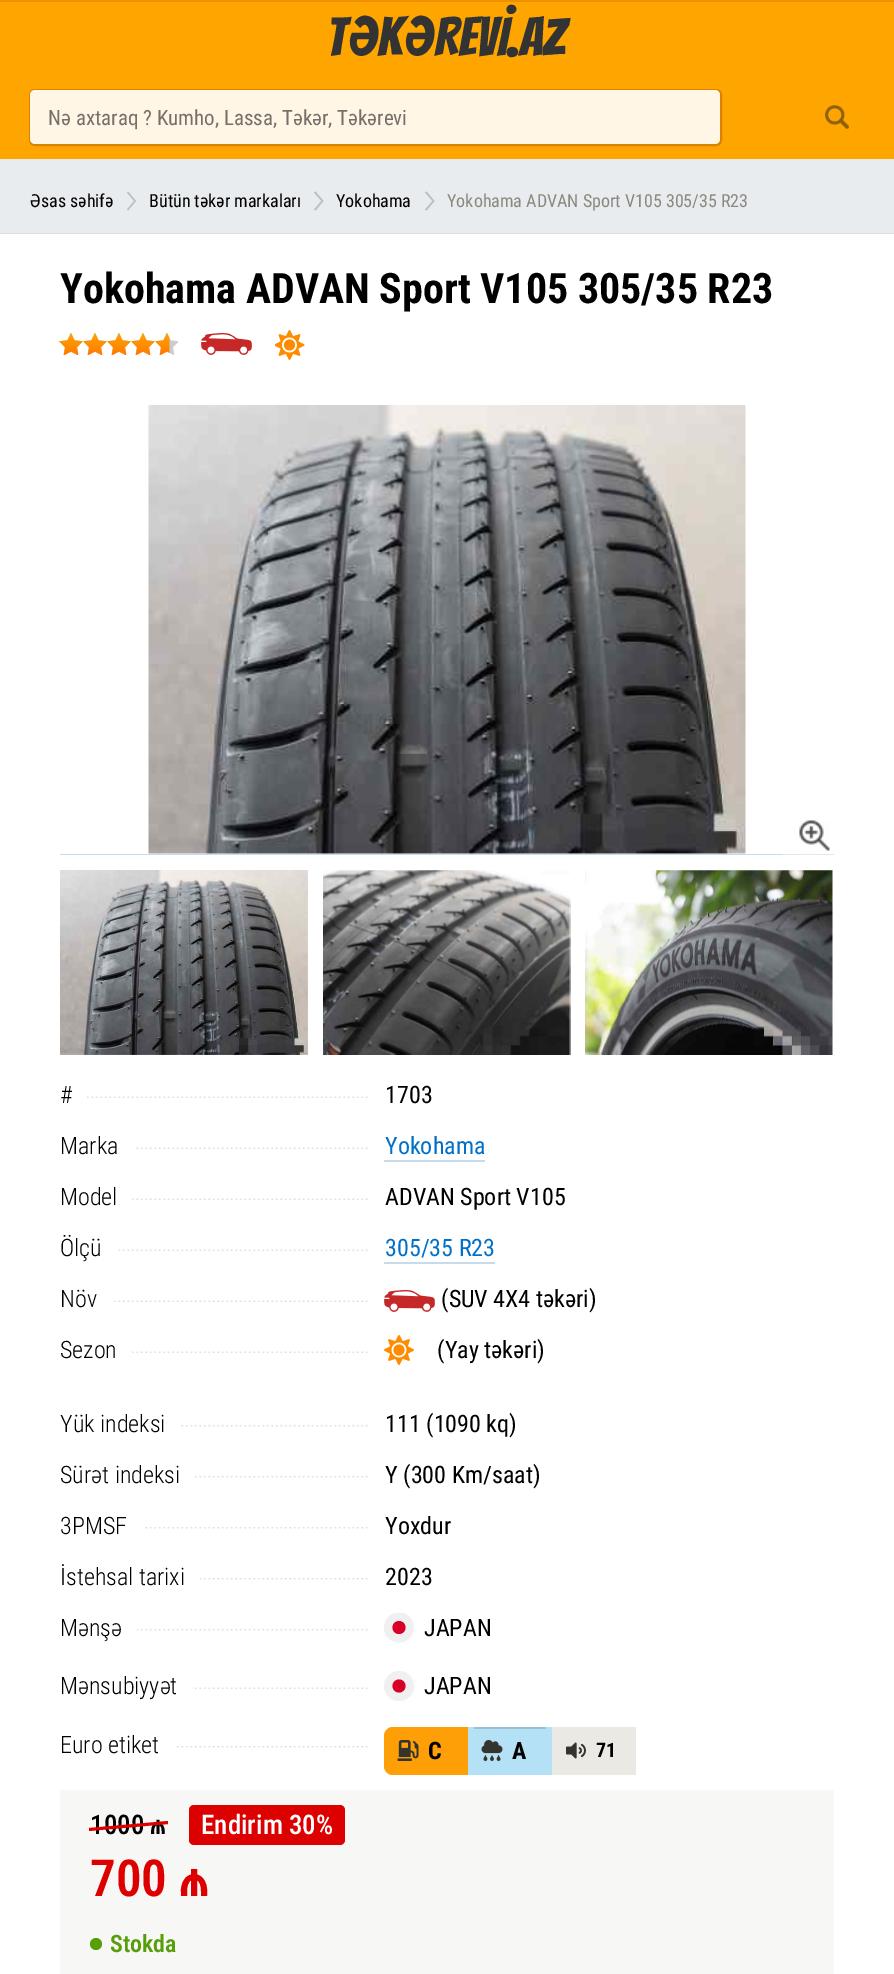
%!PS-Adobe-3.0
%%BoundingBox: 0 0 894 1974
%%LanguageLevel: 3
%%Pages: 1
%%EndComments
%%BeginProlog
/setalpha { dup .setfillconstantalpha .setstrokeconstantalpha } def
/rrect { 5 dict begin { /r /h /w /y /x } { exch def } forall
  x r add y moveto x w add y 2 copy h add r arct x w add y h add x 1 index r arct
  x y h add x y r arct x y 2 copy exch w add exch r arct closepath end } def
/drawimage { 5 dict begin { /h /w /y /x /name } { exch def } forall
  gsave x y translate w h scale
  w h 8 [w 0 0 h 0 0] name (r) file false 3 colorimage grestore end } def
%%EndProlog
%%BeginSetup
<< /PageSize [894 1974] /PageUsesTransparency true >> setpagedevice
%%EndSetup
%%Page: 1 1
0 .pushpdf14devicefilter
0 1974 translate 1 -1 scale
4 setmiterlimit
0.914 0.925 0.937 setrgbcolor
0 0 894 1974 rectfill
1 0.647 0 setrgbcolor
0 2 894 157 rectfill
0.941 0.561 0 setrgbcolor
0 0 894 2 rectfill
0.859 0.514 0 setrgbcolor
2 setlinewidth
30 90 691 55 5 rrect stroke
1 0.965 0.902 setrgbcolor
30 90 690 54 5 rrect fill
(images/1.raw) 825 105 24 24 drawimage
0.737 0.745 0.749 setrgbcolor
newpath 136 201 moveto 128 191.5 lineto 127 192.5 lineto 134 201 lineto 127 209.5 lineto 128 210.5 lineto closepath fill
newpath 323.5 201 moveto 315.5 191.5 lineto 314 192.5 lineto 321.5 201 lineto 314 209.5 lineto 315.5 210.5 lineto closepath fill
newpath 434.5 201 moveto 426.5 191.5 lineto 425 192.5 lineto 432.5 201 lineto 425 209.5 lineto 426.5 210.5 lineto closepath fill
0.863 0.871 0.878 setrgbcolor
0 234 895 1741 rectstroke
1 setgray
0 234 894 1740 rectfill
(images/2.raw) 58 333 121 22 drawimage
(images/3.raw) 58 333 112 22 drawimage
(images/4.raw) 201 333 51 22 drawimage
(images/5.raw) 275 330 30 30 drawimage
0.776 0.859 0.922 setrgbcolor
60 854 774 1 rectfill
(images/6.raw) 148 405 598 449 drawimage
0.42 setalpha
1 setgray
newpath 834 803 moveto 834 855 lineto 782 855 lineto 782 826.5 805.5 803 834 803 curveto closepath fill
1 setalpha
(images/7.raw) 799 820 31 31 drawimage
(images/8.raw) 60 870 248 185 drawimage
(images/9.raw) 323 870 248 185 drawimage
(images/10.raw) 585 870 248 185 drawimage
(images/11.raw) 87 1096 281 2 drawimage
(images/12.raw) 136 1147 232 2 drawimage
0.776 0.859 0.922 setrgbcolor
384 1160 101 2 rectfill
(images/13.raw) 132 1198 236 2 drawimage
(images/14.raw) 118 1249 250 2 drawimage
384 1262 111 2 rectfill
(images/15.raw) 113 1300 255 2 drawimage
(images/4.raw) 384 1290 51 22 drawimage
(images/13.raw) 132 1351 236 2 drawimage
(images/16.raw) 384 1335 30 30 drawimage
(images/17.raw) 181 1425 187 2 drawimage
(images/18.raw) 195 1476 173 2 drawimage
(images/19.raw) 145 1527 223 2 drawimage
(images/20.raw) 200 1578 168 2 drawimage
(images/21.raw) 137 1629 231 2 drawimage
gsave
384 1613 30 30 rectclip
0.941 setgray
newpath 399 1627.5 15 0 360 arc closepath fill
grestore
0.847 0 0.153 setrgbcolor
newpath 399 1627.5 6.5 0 360 arc closepath fill
(images/22.raw) 192 1687 176 2 drawimage
0.941 setgray
newpath 399 1686 15 0 360 arc closepath fill
0.847 0 0.153 setrgbcolor
newpath 399 1686 6.5 0 360 arc closepath fill
0.969 0.969 0.961 setrgbcolor
60 1782 774 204 12 rrect fill
1 setgray
61 1782 772 8 rectfill
(images/23.raw) 174 1746 194 2 drawimage
1 0.624 0.031 setrgbcolor
newpath 393 1727 moveto 468 1727 lineto 468 1775 lineto 393 1775 lineto 388 1775 384 1771 384 1766 curveto 384 1736 lineto 384 1731 388 1727 393 1727 curveto closepath fill
(images/24.raw) 397 1740 22 21 drawimage
0.706 0.882 0.965 setrgbcolor
468 1727 84 48 rectfill
0.6 0.749 0.82 setrgbcolor
474 1727 72 2 rectfill
(images/25.raw) 481 1740 22 21 drawimage
0.922 0.914 0.894 setrgbcolor
552 1727 84 48 rectfill
(images/26.raw) 566 1742 20 17 drawimage
0.867 0 0 setrgbcolor
189 1805 156 40 5 rrect fill
0.341 0.62 0.039 setrgbcolor
newpath 96 1944 6 0 360 arc closepath fill
/Bangers-Regular [54 0 0 -54 0 0] selectfont
0.2 setgray
326 56 moveto (TƏKƏREVİ.AZ) show
/RobotoCondensed-Regular [21 0 0 -21 0 0] selectfont
0.459 0.443 0.416 setrgbcolor
48 125 moveto (Nə axtaraq ? Kumho, Lassa, Təkər, Təkərevi) show
/RobotoCondensed-Regular [18 0 0 -18 0 0] selectfont
0 setgray
30 207 moveto (Əsas səhifə) show
149 207 moveto (Bütün təkər markaları) show
336 207 moveto (Yokohama) show
0.541 0.533 0.498 setrgbcolor
447 207 moveto (Yokohama ADVAN Sport V105 305/35 R23) show
/RobotoCondensed-Bold [42 0 0 -42 0 0] selectfont
0 setgray
60 303 moveto (Yokohama ADVAN Sport V105 305/35 R23) show
/RobotoCondensed-Light [24 0 0 -24 0 0] selectfont
60 1103 moveto (#) show
/RobotoCondensed-Regular [24 0 0 -24 0 0] selectfont
385 1103 moveto (1703) show
/RobotoCondensed-Light [24 0 0 -24 0 0] selectfont
60 1154 moveto (Marka) show
/RobotoCondensed-Regular [24 0 0 -24 0 0] selectfont
0 0.439 0.788 setrgbcolor
385 1154 moveto (Yokohama) show
/RobotoCondensed-Light [24 0 0 -24 0 0] selectfont
0 setgray
60 1205 moveto (Model) show
/RobotoCondensed-Regular [24 0 0 -24 0 0] selectfont
385 1205 moveto (ADVAN Sport V105) show
/RobotoCondensed-Light [24 0 0 -24 0 0] selectfont
60 1256 moveto (Ölçü) show
/RobotoCondensed-Regular [24 0 0 -24 0 0] selectfont
0 0.439 0.788 setrgbcolor
385 1256 moveto (305/35 R23) show
/RobotoCondensed-Light [24 0 0 -24 0 0] selectfont
0 setgray
60 1307 moveto (Növ) show
/RobotoCondensed-Regular [24 0 0 -24 0 0] selectfont
441 1307 moveto (\(SUV 4X4 təkəri\)) show
/RobotoCondensed-Light [24 0 0 -24 0 0] selectfont
60 1358 moveto (Sezon) show
/RobotoCondensed-Regular [24 0 0 -24 0 0] selectfont
437 1358 moveto (\(Yay təkəri\)) show
/RobotoCondensed-Light [24 0 0 -24 0 0] selectfont
60 1432 moveto (Yük indeksi) show
/RobotoCondensed-Regular [24 0 0 -24 0 0] selectfont
385 1432 moveto (111 \(1090 kq\)) show
/RobotoCondensed-Light [24 0 0 -24 0 0] selectfont
60 1483 moveto (Sürət indeksi) show
/RobotoCondensed-Regular [24 0 0 -24 0 0] selectfont
385 1483 moveto (Y \(300 Km/saat\)) show
/RobotoCondensed-Light [24 0 0 -24 0 0] selectfont
60 1534 moveto (3PMSF) show
/RobotoCondensed-Regular [24 0 0 -24 0 0] selectfont
385 1534 moveto (Yoxdur) show
/RobotoCondensed-Light [24 0 0 -24 0 0] selectfont
60 1585 moveto (İstehsal tarixi) show
/RobotoCondensed-Regular [24 0 0 -24 0 0] selectfont
385 1585 moveto (2023) show
/RobotoCondensed-Light [24 0 0 -24 0 0] selectfont
60 1636 moveto (Mənşə) show
/RobotoCondensed-Regular [24 0 0 -24 0 0] selectfont
424 1636 moveto (JAPAN) show
/RobotoCondensed-Light [24 0 0 -24 0 0] selectfont
60 1694 moveto (Mənsubiyyət) show
/RobotoCondensed-Regular [24 0 0 -24 0 0] selectfont
424 1694 moveto (JAPAN) show
/RobotoCondensed-Light [24 0 0 -24 0 0] selectfont
60 1753 moveto (Euro etiket) show
/RobotoCondensed-Bold [24 0 0 -24 0 0] selectfont
428 1759 moveto (C) show
512 1759 moveto (A) show
/RobotoCondensed-Bold [20 0 0 -20 0 0] selectfont
596 1757 moveto (71) show
/RobotoCondensed-Medium [27 0 0 -27 0 0] selectfont
90 1834 moveto (1000 ₼) show
0.867 0 0 setrgbcolor
newpath 89 1828 moveto 168 1821 lineto 168 1824 lineto 89 1831 lineto closepath fill
1 setgray
201 1834 moveto (Endirim 30%) show
/RobotoCondensed-SemiBold [51 0 0 -51 0 0] selectfont
0.867 0 0 setrgbcolor
90 1896 moveto (700 ₼) show
/RobotoCondensed-SemiBold [24 0 0 -24 0 0] selectfont
0.341 0.62 0.039 setrgbcolor
110 1952 moveto (Stokda) show
.poppdf14devicefilter showpage
%%EOF
